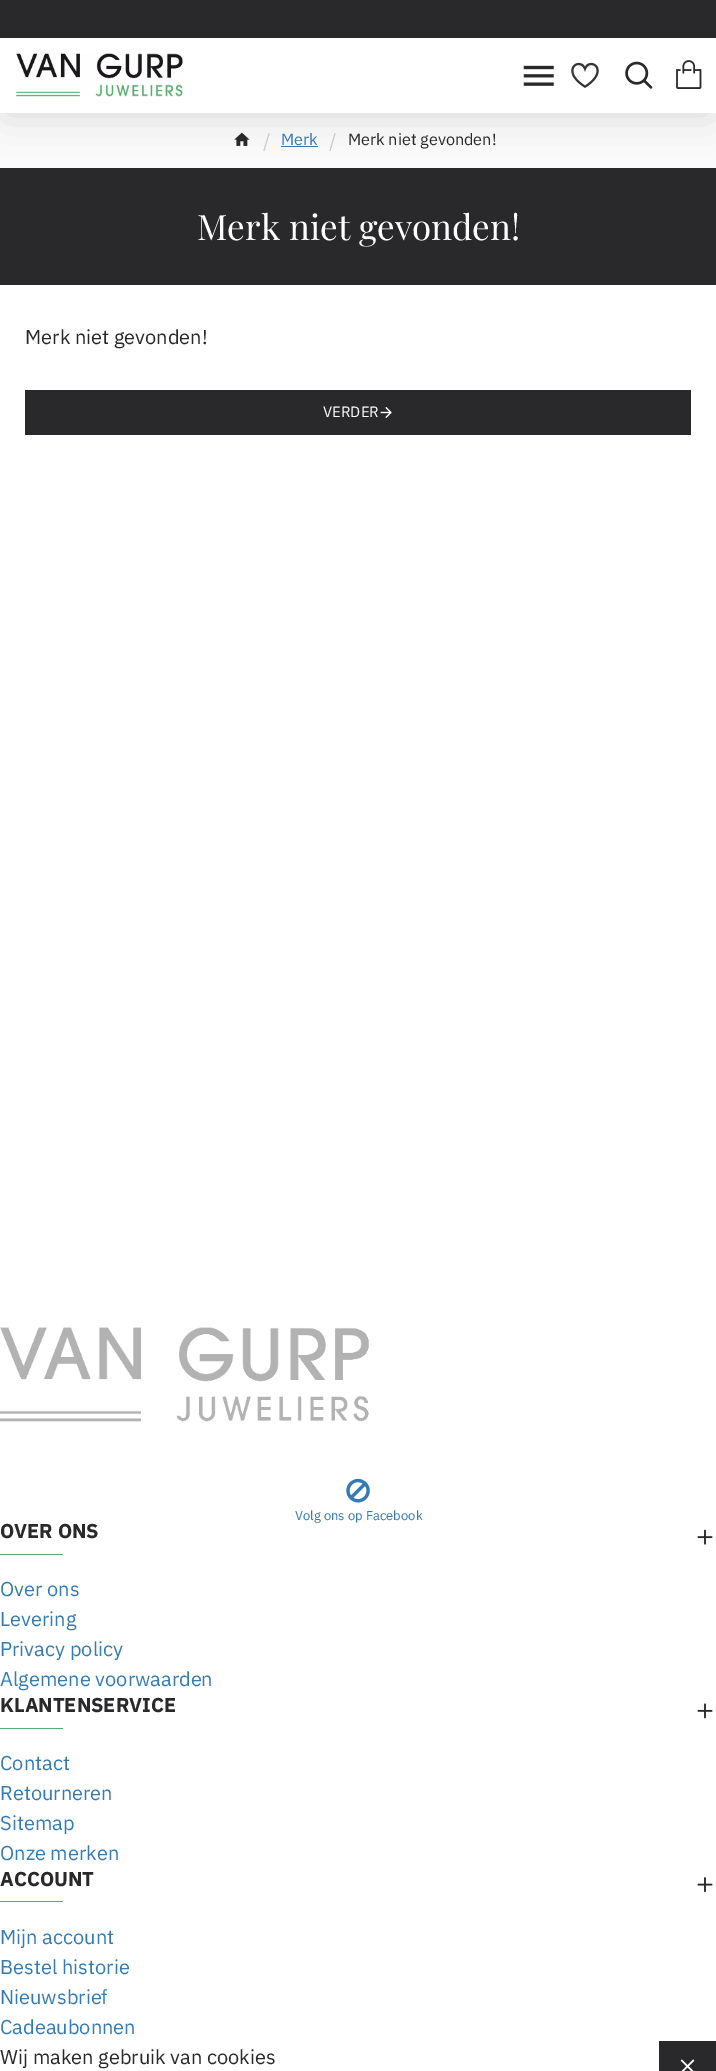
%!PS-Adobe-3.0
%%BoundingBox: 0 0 716 2071
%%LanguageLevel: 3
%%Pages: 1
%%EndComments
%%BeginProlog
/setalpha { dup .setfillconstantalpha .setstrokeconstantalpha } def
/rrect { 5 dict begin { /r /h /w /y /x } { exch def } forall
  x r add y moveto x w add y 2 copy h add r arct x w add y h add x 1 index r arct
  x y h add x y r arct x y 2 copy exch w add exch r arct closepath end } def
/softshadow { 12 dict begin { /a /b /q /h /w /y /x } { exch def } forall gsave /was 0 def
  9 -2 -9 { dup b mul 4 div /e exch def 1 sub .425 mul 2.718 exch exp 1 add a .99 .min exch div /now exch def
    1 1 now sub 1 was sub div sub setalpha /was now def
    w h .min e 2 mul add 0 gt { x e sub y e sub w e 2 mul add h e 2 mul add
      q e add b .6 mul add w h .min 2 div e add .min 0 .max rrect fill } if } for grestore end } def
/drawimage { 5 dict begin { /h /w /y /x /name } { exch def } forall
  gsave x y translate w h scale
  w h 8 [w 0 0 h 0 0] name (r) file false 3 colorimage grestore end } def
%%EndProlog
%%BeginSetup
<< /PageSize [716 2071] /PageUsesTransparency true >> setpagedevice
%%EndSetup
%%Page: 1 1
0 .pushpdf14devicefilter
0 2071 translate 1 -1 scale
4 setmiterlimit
1 setgray
0 0 716 2071 rectfill
0.98 setgray
0 113 716 55 rectfill
(images/6.raw) 234 132 16 14 drawimage
0.2 0.478 0.718 setrgbcolor
281 146 37 1 rectfill
0.161 0.161 0.169 setrgbcolor
0 168 716 117 rectfill
0 setgray
6 50 704 63 0 19 0.15 softshadow
1 setgray
0 38 716 75 rectfill
(images/1.raw) 16 53 167 44 drawimage
(images/2.raw) 523 65 31 21 drawimage
(images/3.raw) 571 62 28 26 drawimage
(images/4.raw) 625 61 28 28 drawimage
(images/5.raw) 676 60 26 29 drawimage
0.161 0.161 0.169 setrgbcolor
0 0 716 38 rectfill
25 390 666 45 rectfill
(images/7.raw) 380 407 12 11 drawimage
(images/8.raw) 0 1327 369 95 drawimage
(images/9.raw) 346 1478 24 25 drawimage
(images/10.raw) 697 1529 16 16 drawimage
0.314 0.69 0.439 setrgbcolor
0 1554 63 1 rectfill
(images/11.raw) 697 1703 16 16 drawimage
0 1728 63 1 rectfill
(images/12.raw) 697 1877 16 16 drawimage
0 1901 63 1 rectfill
0.161 0.161 0.169 setrgbcolor
659 2041 57 30 rectfill
(images/13.raw) 680 2059 15 12 drawimage
/IBMPlexSans-Regular [20 0 0 -20 0 0] selectfont
0.8 setgray
263 148 moveto (/) show
/IBMPlexSans-Regular [16.25 0 0 -16.25 0 0] selectfont
0.2 0.478 0.718 setrgbcolor
281 145 moveto (Merk) show
/IBMPlexSans-Regular [20 0 0 -20 0 0] selectfont
0.8 setgray
329 148 moveto (/) show
/IBMPlexSans-Regular [16.25 0 0 -16.25 0 0] selectfont
0.161 0.161 0.169 setrgbcolor
348 145 moveto (Merk niet gevonden!) show
/PlayfairDisplay-Regular [35 0 0 -35 0 0] selectfont
1 setgray
197 240 moveto (Merk niet gevonden!) show
/IBMPlexSans-Regular [20 0 0 -20 0 0] selectfont
0.161 0.161 0.169 setrgbcolor
25 344 moveto (Merk niet gevonden!) show
/IBMPlexSans-Regular [15 0 0 -15 0 0] selectfont
1 setgray
323 417 moveto (VERDER) show
/IBMPlexSans-Regular [13 0 0 -13 0 0] selectfont
0.2 0.478 0.718 setrgbcolor
295 1520 moveto (Volg ons op Facebook) show
/IBMPlexSans-Bold [20 0 0 -20 0 0] selectfont
0.161 0.161 0.169 setrgbcolor
0 1538 moveto (OVER ONS) show
/IBMPlexSans-Regular [20 0 0 -20 0 0] selectfont
0.2 0.478 0.718 setrgbcolor
0 1596 moveto (Over ons) show
0 1626 moveto (Levering) show
0 1656 moveto (Privacy policy) show
0 1686 moveto (Algemene voorwaarden) show
/IBMPlexSans-Bold [20 0 0 -20 0 0] selectfont
0.161 0.161 0.169 setrgbcolor
0 1712 moveto (KLANTENSERVICE) show
/IBMPlexSans-Regular [20 0 0 -20 0 0] selectfont
0.2 0.478 0.718 setrgbcolor
0 1770 moveto (Contact) show
0 1800 moveto (Retourneren) show
0 1830 moveto (Sitemap) show
0 1860 moveto (Onze merken) show
/IBMPlexSans-Bold [20 0 0 -20 0 0] selectfont
0.161 0.161 0.169 setrgbcolor
0 1886 moveto (ACCOUNT) show
/IBMPlexSans-Regular [20 0 0 -20 0 0] selectfont
0.2 0.478 0.718 setrgbcolor
0 1944 moveto (Mijn account) show
0 1974 moveto (Bestel historie) show
0 2004 moveto (Nieuwsbrief) show
0 2034 moveto (Cadeaubonnen) show
0.161 0.161 0.169 setrgbcolor
0 2064 moveto (Wij maken gebruik van cookies) show
.poppdf14devicefilter showpage
%%EOF
